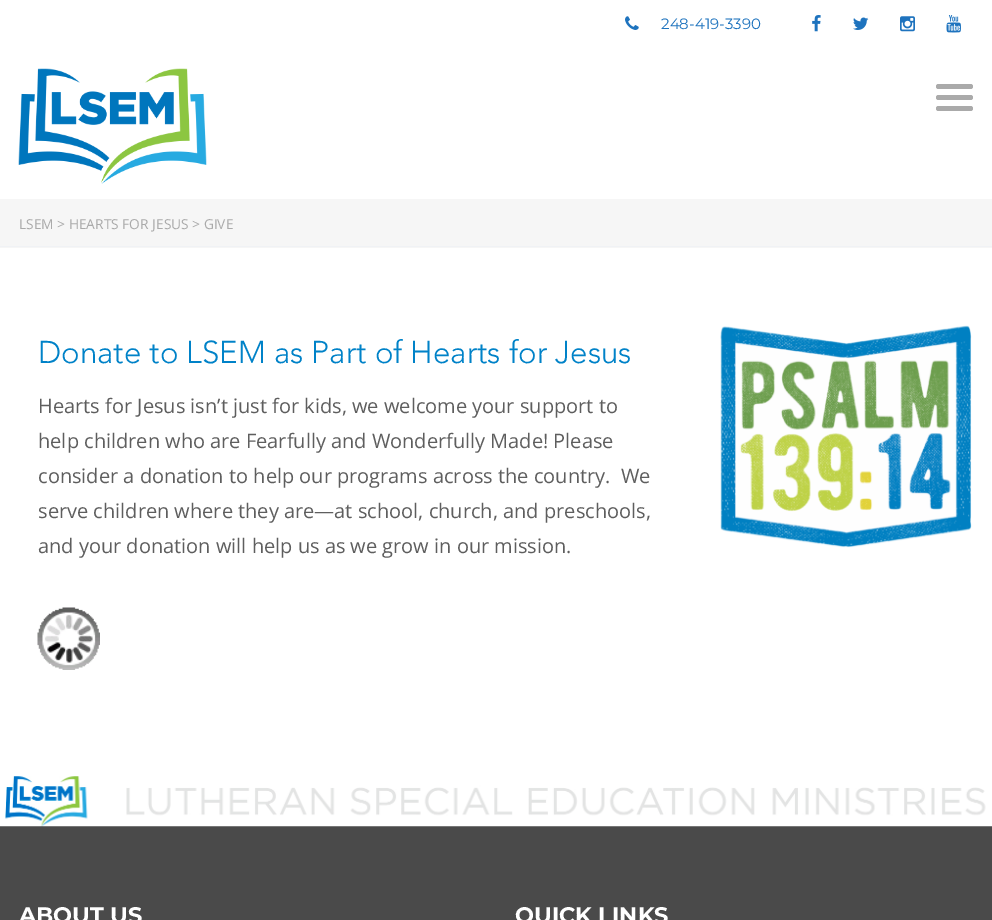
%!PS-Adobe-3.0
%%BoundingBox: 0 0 992 920
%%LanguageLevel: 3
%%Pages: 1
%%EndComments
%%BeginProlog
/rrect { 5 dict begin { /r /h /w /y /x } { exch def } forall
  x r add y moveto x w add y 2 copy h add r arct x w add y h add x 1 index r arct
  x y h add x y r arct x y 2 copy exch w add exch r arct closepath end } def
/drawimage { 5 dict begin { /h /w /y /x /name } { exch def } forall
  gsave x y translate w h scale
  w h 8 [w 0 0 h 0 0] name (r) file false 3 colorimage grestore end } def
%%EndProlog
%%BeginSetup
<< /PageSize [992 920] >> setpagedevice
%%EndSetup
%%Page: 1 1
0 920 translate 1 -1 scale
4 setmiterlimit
1 setgray
0 0 992 920 rectfill
(images/1.raw) 625 16 14 14 drawimage
(images/2.raw) 812 15 9 17 drawimage
(images/3.raw) 853 17 16 13 drawimage
(images/4.raw) 900 16 15 16 drawimage
(images/5.raw) 946 15 15 18 drawimage
(images/6.raw) 18 68 189 116 drawimage
0.667 setgray
936 84 37 5 2.5 rrect fill
936 95 37 5 2.5 rrect fill
936 106 37 5 2.5 rrect fill
0.965 setgray
0 199 992 49 rectfill
0.941 0.949 0.961 setrgbcolor
0 246 992 1 rectfill
(images/7.raw) 720 325 252 223 drawimage
(images/8.raw) 37 607 63 63 drawimage
0.29 setgray
0 826 992 94 rectfill
(images/9.raw) 0 776 992 51 drawimage
/Montserrat-Regular [15 0 0 -15 0 0] selectfont
0.118 0.451 0.745 setrgbcolor
661 29 moveto (248-419-3390) show
/OpenSans-Regular [13.75 0 0 -13.75 0 0] selectfont
0.667 setgray
19 229 moveto (LSEM > HEARTS FOR JESUS > GIVE) show
/Avenir-Light [31.25 0 0 -31.25 0 0] selectfont
0 0.51 0.784 setrgbcolor
38 363 moveto (Donate to LSEM as Part of Hearts for Jesus) show
/OpenSans-Regular [20 0 0 -20 0 0] selectfont
0.369 setgray
38 413 moveto (Hearts for Jesus isn’t just for kids, we welcome your support to) show
38 448 moveto (help children who are Fearfully and Wonderfully Made! Please) show
38 483 moveto (consider a donation to help our programs across the country.  We) show
38 518 moveto (serve children where they are—at school, church, and preschools,) show
38 553 moveto (and your donation will help us as we grow in our mission.) show
/Montserrat-Bold [22.5 0 0 -22.5 0 0] selectfont
1 setgray
19 923 moveto (ABOUT US) show
515 923 moveto (QUICK LINKS) show
showpage
%%EOF
